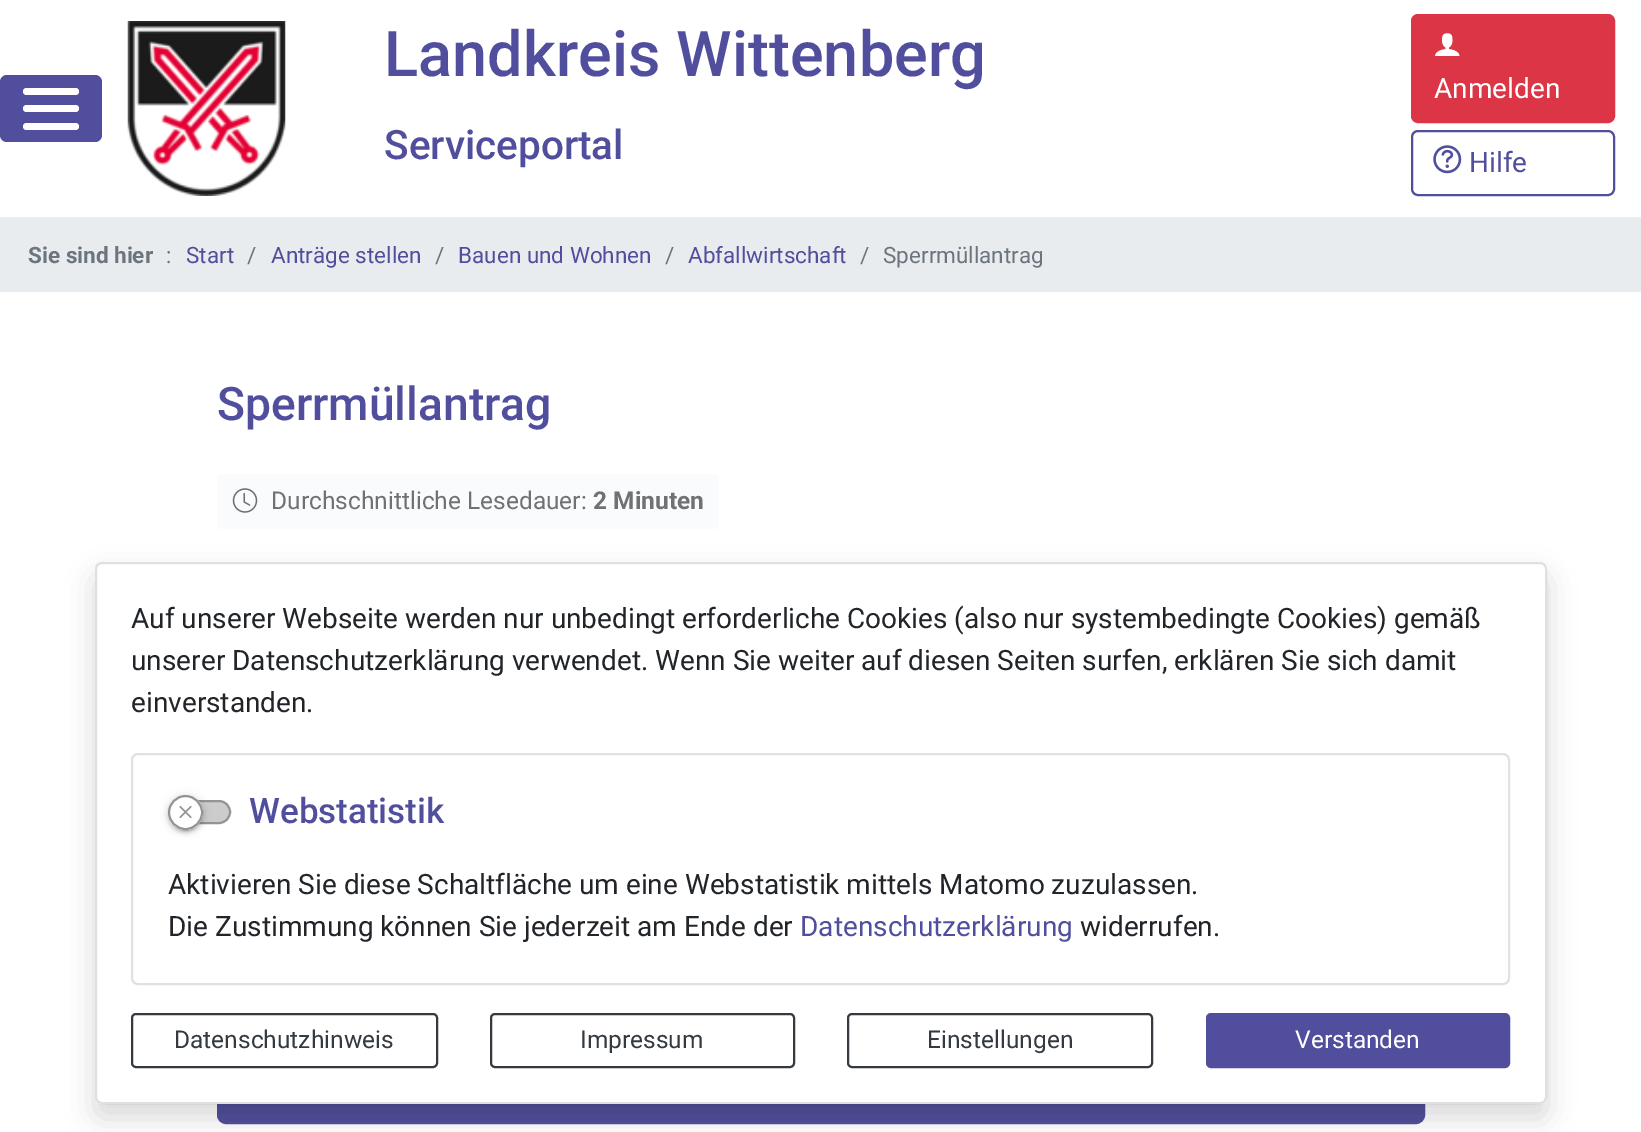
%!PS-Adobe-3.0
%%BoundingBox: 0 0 1641 1132
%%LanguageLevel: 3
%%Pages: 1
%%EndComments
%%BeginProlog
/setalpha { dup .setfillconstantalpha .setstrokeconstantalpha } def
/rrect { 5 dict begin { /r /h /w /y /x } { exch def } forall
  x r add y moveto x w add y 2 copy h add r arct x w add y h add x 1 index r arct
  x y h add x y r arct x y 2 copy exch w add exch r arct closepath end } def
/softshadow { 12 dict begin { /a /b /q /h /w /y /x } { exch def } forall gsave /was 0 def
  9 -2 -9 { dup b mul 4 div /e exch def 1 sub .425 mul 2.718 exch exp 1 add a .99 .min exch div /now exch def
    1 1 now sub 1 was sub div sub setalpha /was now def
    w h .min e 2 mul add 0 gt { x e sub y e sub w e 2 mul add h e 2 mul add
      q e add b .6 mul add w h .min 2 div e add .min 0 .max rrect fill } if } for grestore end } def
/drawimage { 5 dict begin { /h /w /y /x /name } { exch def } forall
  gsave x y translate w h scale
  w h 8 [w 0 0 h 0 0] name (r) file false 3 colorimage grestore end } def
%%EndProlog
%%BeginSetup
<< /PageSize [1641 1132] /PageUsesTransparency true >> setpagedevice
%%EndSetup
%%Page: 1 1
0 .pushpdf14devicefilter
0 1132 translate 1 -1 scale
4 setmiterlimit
1 setgray
0 0 1641 1132 rectfill
0.318 0.31 0.616 setrgbcolor
0 75 102 67 7 rrect fill
1 setgray
23 88 56 7 3.5 rrect fill
23 105 56 7 3.5 rrect fill
23 123 56 7 3.5 rrect fill
(images/1.raw) 127 21 159 175 drawimage
0.863 0.208 0.271 setrgbcolor
1412 15 202 107 6 rrect gsave fill grestore
2 setlinewidth
stroke
(images/2.raw) 1435 33 25 23 drawimage
0.318 0.31 0.616 setrgbcolor
1412 131 202 64 6 rrect stroke
(images/3.raw) 1433 145 29 29 drawimage
0.914 0.925 0.937 setrgbcolor
0 217 1641 75 rectfill
0.98 0.984 0.988 setrgbcolor
217 474 502 55 5 rrect fill
(images/4.raw) 232 488 26 25 drawimage
0.318 0.31 0.616 setrgbcolor
218 1041 1206 82 8 rrect gsave fill grestore
stroke
0 setgray
95 576 1452 542 7 14 0.15 softshadow
1 setgray
95 562 1452 542 7 rrect fill
0.12 setalpha
0 setgray
96 563 1450 540 6 rrect stroke
1 setalpha
0.871 0.886 0.902 setrgbcolor
132 754 1377 230 6 rrect stroke
0.8 setgray
169 801 61 22 11 rrect gsave fill grestore
0.58 setgray
stroke
0 setgray
168 796 35 35 17.5 4.5 0.12 softshadow
168 798 35 35 17.5 2 0.14 softshadow
172 803 28 28 14 1 0.2 softshadow
1 setgray
newpath 185.5 812.5 17.5 0 360 arc closepath fill
(images/5.raw) 179 805 13 14 drawimage
0.58 setgray
newpath 185.5 812.5 16.5 0 360 arc closepath stroke
0.204 0.227 0.251 setrgbcolor
132 1014 305 53 4 rrect stroke
491 1014 303 53 4 rrect stroke
848 1014 304 53 4 rrect stroke
0.318 0.31 0.616 setrgbcolor
1207 1014 302 53 4 rrect gsave fill grestore
stroke
/Roboto-Medium [63.1 0 0 -63.1 0 0] selectfont
384 76 moveto (Landkreis Wittenberg) show
/Roboto-Medium [40.5 0 0 -40.5 0 0] selectfont
384 159 moveto (Serviceportal) show
/Roboto-Regular [28 0 0 -28 0 0] selectfont
1 setgray
1434 98 moveto (Anmelden) show
0.318 0.31 0.616 setrgbcolor
1469 172 moveto (Hilfe) show
/Roboto-Bold [22.5 0 0 -22.5 0 0] selectfont
0.424 0.459 0.49 setrgbcolor
28 263 moveto (Sie sind hier) show
/Roboto-Regular [22.5 0 0 -22.5 0 0] selectfont
166 263 moveto (:) show
0.318 0.31 0.616 setrgbcolor
186 263 moveto (Start) show
0.424 0.459 0.49 setrgbcolor
247 263 moveto (/) show
0.318 0.31 0.616 setrgbcolor
271 263 moveto (Anträge stellen) show
0.424 0.459 0.49 setrgbcolor
435 263 moveto (/) show
0.318 0.31 0.616 setrgbcolor
458 263 moveto (Bauen und Wohnen) show
0.424 0.459 0.49 setrgbcolor
665 263 moveto (/) show
0.318 0.31 0.616 setrgbcolor
688 263 moveto (Abfallwirtschaft) show
0.424 0.459 0.49 setrgbcolor
860 263 moveto (/) show
883 263 moveto (Sperrmüllantrag) show
/Roboto-Medium [46.25 0 0 -46.25 0 0] selectfont
0.318 0.31 0.616 setrgbcolor
217 420 moveto (Sperrmüllantrag) show
/Roboto-Regular [24.5 0 0 -24.5 0 0] selectfont
0.435 0.443 0.455 setrgbcolor
271 509 moveto (Durchschnittliche Lesedauer:) show
/Roboto-Bold [24.5 0 0 -24.5 0 0] selectfont
593 509 moveto (2 Minuten) show
/Roboto-Regular [28 0 0 -28 0 0] selectfont
0.129 0.145 0.161 setrgbcolor
131 628 moveto (Auf unserer Webseite werden nur unbedingt erforderliche Cookies \(also nur systembedingte Cookies\) gemäß) show
131 670 moveto (unserer Datenschutzerklärung verwendet. Wenn Sie weiter auf diesen Seiten surfen, erklären Sie sich damit) show
131 712 moveto (einverstanden.) show
/Roboto-Medium [35 0 0 -35 0 0] selectfont
0.318 0.31 0.616 setrgbcolor
249 823 moveto (Webstatistik) show
/Roboto-Regular [28 0 0 -28 0 0] selectfont
0.129 0.145 0.161 setrgbcolor
168 894 moveto (Aktivieren Sie diese Schaltfläche um eine Webstatistik mittels Matomo zuzulassen.) show
168 936 moveto (Die Zustimmung können Sie jederzeit am Ende der) show
0.318 0.31 0.616 setrgbcolor
800 936 moveto (Datenschutzerklärung) show
0.129 0.145 0.161 setrgbcolor
1080 936 moveto (widerrufen.) show
/Roboto-Regular [24.5 0 0 -24.5 0 0] selectfont
0.204 0.227 0.251 setrgbcolor
174 1048 moveto (Datenschutzhinweis) show
580 1048 moveto (Impressum) show
927 1048 moveto (Einstellungen) show
1 setgray
1295 1048 moveto (Verstanden) show
.poppdf14devicefilter showpage
%%EOF
